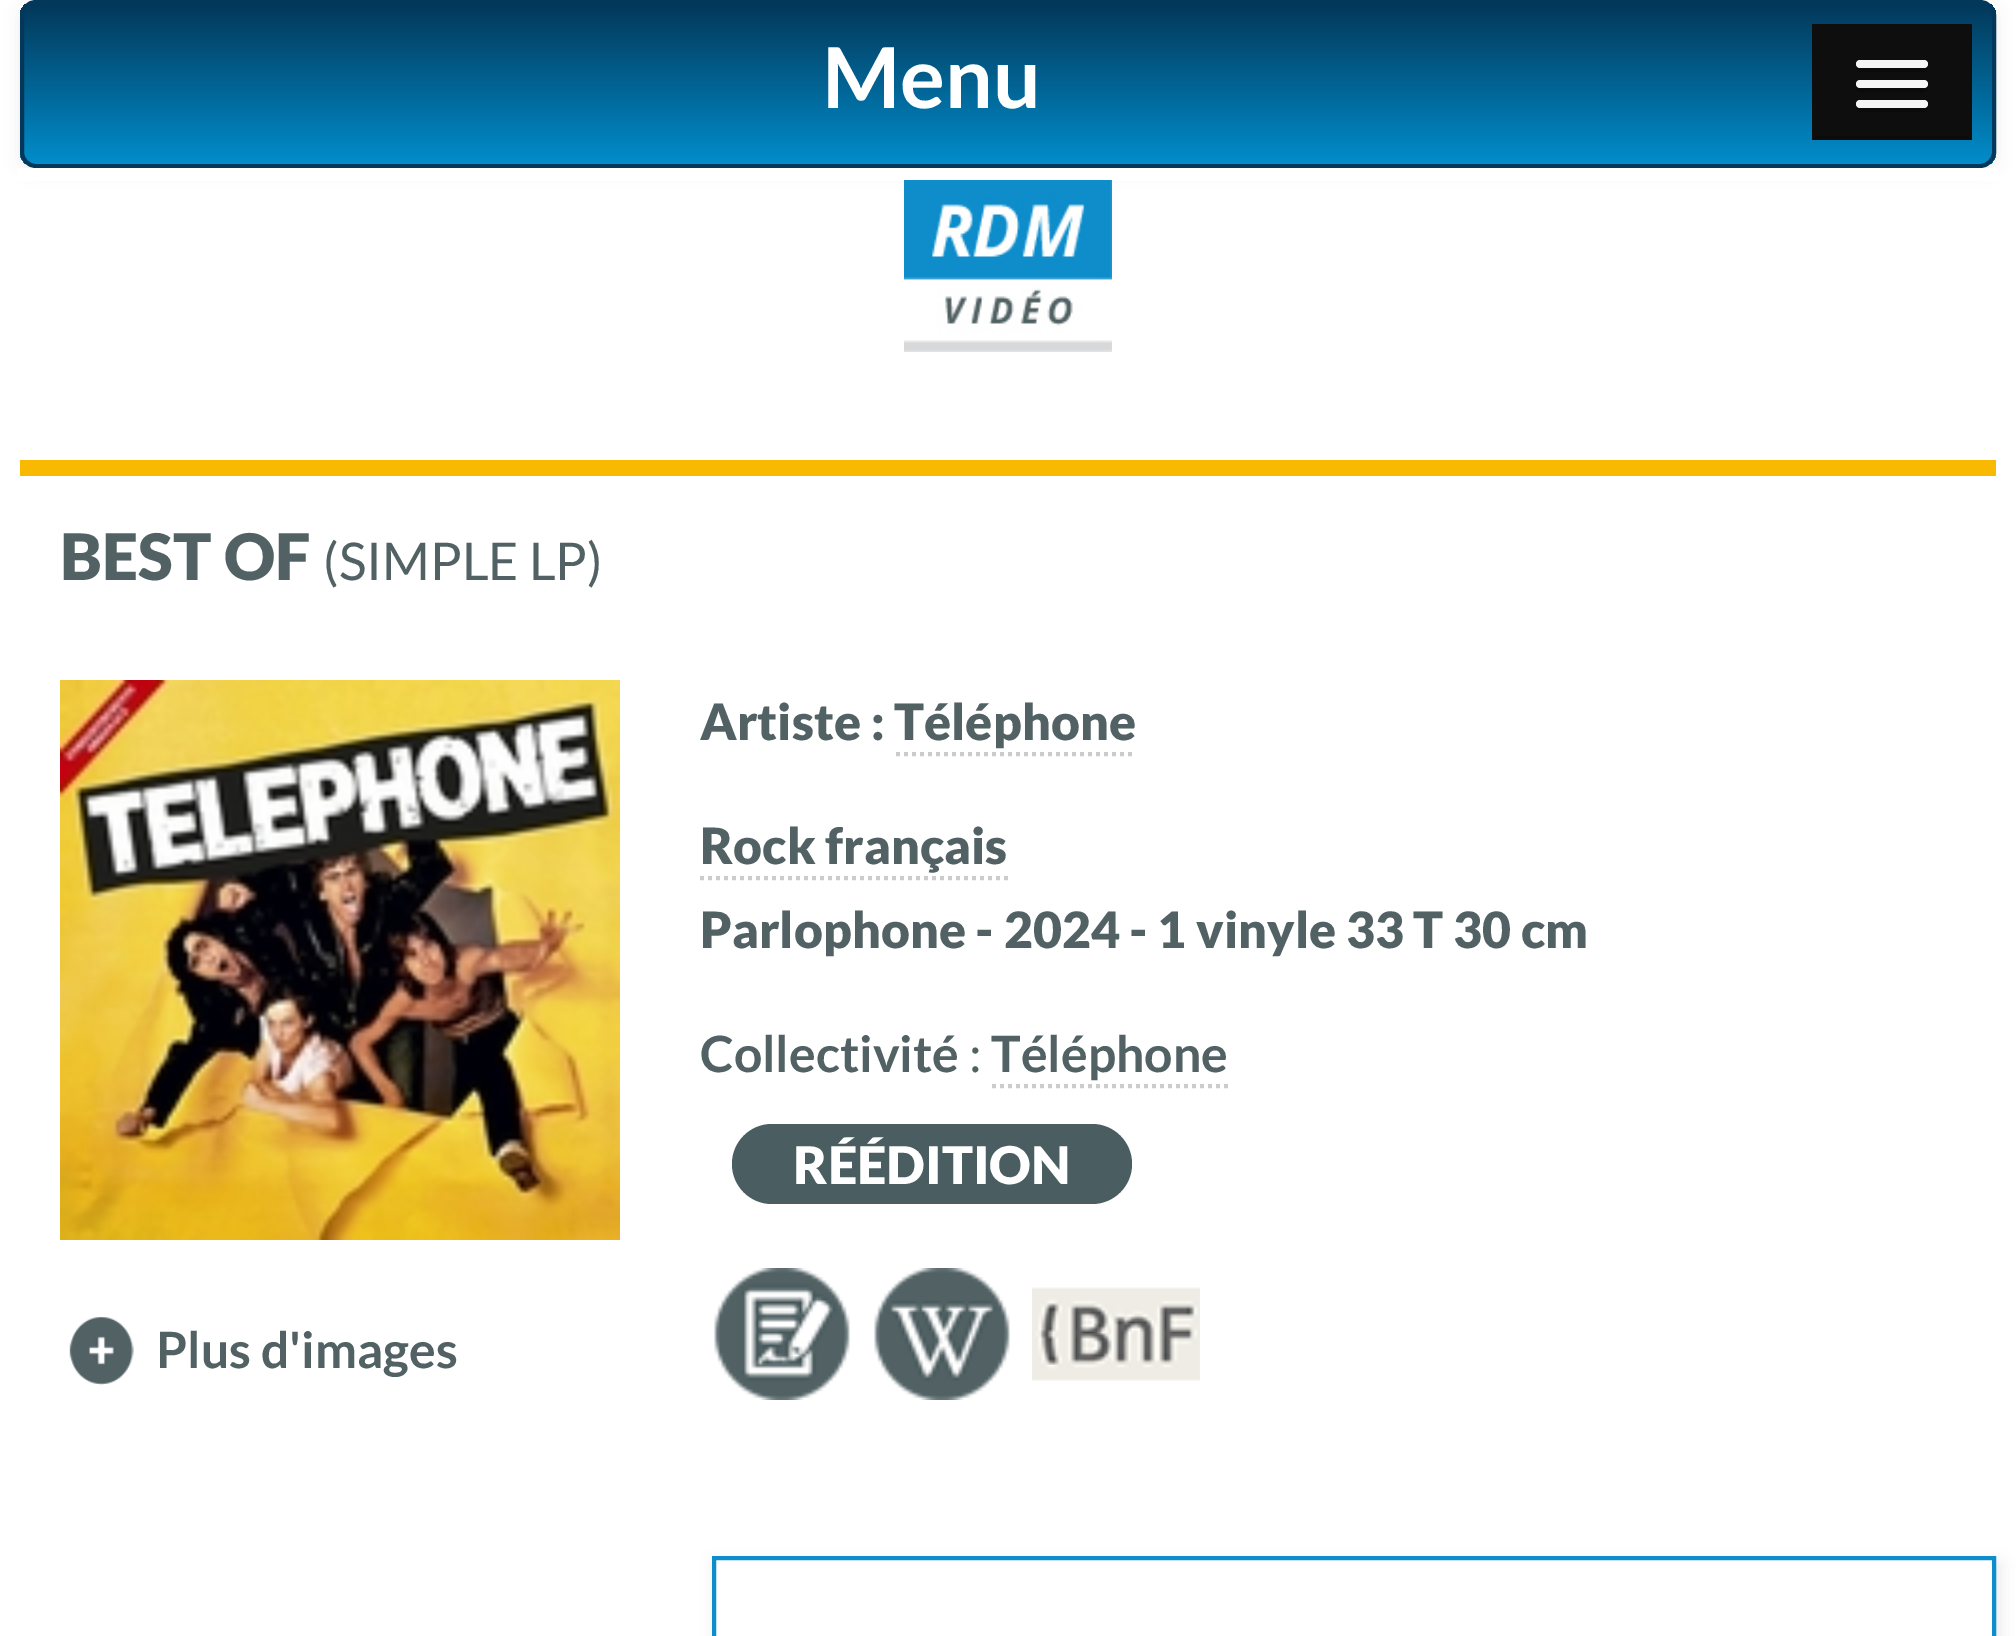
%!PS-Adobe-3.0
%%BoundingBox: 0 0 2016 1636
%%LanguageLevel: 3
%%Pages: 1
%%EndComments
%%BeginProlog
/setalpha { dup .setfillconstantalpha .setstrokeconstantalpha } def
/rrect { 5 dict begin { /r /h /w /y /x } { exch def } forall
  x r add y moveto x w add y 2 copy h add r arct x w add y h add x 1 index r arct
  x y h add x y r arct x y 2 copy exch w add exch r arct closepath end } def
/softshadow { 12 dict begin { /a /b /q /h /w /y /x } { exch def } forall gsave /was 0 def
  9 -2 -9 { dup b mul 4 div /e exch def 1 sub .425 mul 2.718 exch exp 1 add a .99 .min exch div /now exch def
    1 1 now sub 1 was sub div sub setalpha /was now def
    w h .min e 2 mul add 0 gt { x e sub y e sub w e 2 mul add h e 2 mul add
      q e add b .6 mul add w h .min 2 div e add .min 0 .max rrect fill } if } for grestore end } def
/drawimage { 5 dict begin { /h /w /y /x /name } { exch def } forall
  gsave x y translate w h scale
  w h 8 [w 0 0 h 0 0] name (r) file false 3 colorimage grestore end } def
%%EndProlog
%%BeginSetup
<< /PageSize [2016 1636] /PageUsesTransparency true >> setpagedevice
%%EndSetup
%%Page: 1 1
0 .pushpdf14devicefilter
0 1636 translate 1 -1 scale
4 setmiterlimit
1 setgray
0 0 2016 1636 rectfill
0 setgray
20 4 1976 168 16 8 0.07 softshadow
gsave
20 0 1976 168 16 rrect clip newpath
gsave newpath 20 4 moveto 1996 4 lineto 1996 164 lineto 20 164 lineto closepath clip newpath
<< /ShadingType 2 /ColorSpace /DeviceRGB /Coords [1008 4 1008 164] /Extend [true true] /Function << /FunctionType 2 /Domain [0 1] /C0 [0.012 0.22 0.353] /C1 [0.004 0.553 0.796] /N 1 >> >> shfill grestore
grestore
0.012 0.22 0.353 setrgbcolor
4 setlinewidth
22 2 1972 164 14 rrect stroke
0.055 setgray
1812 24 160 116 rectfill
0.043 setgray
newpath 1972 140 moveto 1812 140 lineto 1816 136 lineto 1968 136 lineto closepath fill
newpath 1857 66 moveto 1852 74 1870 72 1871 72 curveto 1913 72 lineto 1914 72 1932 74 1927 66 curveto 1927 67 1925 68 1924 68 curveto 1860 68 lineto 1859 68 1857 67 1857 66 curveto closepath fill
0.961 setgray
1856 60 72 8 4 rrect fill
0.043 setgray
newpath 1857 86 moveto 1852 94 1870 92 1871 92 curveto 1913 92 lineto 1914 92 1932 94 1927 86 curveto 1927 87 1925 88 1924 88 curveto 1860 88 lineto 1859 88 1857 87 1857 86 curveto closepath fill
0.961 setgray
1856 80 72 8 4 rrect fill
0.043 setgray
newpath 1857 106 moveto 1852 114 1870 112 1871 112 curveto 1913 112 lineto 1914 112 1932 114 1927 106 curveto 1927 107 1925 108 1924 108 curveto 1860 108 lineto 1859 108 1857 107 1857 106 curveto closepath fill
0.961 setgray
1856 100 72 8 4 rrect fill
1 setgray
17 168 1982 13 rectfill
(images/1.raw) 904 180 208 172 drawimage
0.973 0.725 0 setrgbcolor
20 460 1976 16 rectfill
0.8 setgray
[4 4] 0 setdash
newpath 896 754 moveto 1136 754 lineto stroke
newpath 700 878 moveto 1008 878 lineto stroke
newpath 992 1086 moveto 1228 1086 lineto stroke
0.29 0.369 0.38 setrgbcolor
732 1124 400 80 40 rrect fill
(images/2.raw) 714 1268 136 132 drawimage
(images/3.raw) 874 1268 136 132 drawimage
(images/4.raw) 1032 1287 168 94 drawimage
gsave
newpath 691 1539 moveto 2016 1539 lineto 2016 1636 lineto 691 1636 lineto closepath 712 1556 moveto 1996 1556 lineto 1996 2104 lineto 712 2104 lineto closepath eoclip newpath
0.882 0.894 0.894 setrgbcolor
716 1564 1284 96 0 8 0.75 softshadow
grestore
0.055 0.553 0.796 setrgbcolor
[] 0 setdash
714 1558 1280 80 rectstroke
(images/5.raw) 60 680 560 560 drawimage
(images/6.raw) 69 1316 65 69 drawimage
/Lato-Bold [84 0 0 -84 0 0] selectfont
1 setgray
822 108 moveto (Menu) show
/Lato-Black [64 0 0 -64 0 0] selectfont
0.318 0.38 0.392 setrgbcolor
60 580 moveto (BEST OF) show
/Lato-Regular [52 0 0 -52 0 0] selectfont
323 580 moveto (\(SIMPLE LP\)) show
/Lato-Black [50 0 0 -50 0 0] selectfont
700 740 moveto (Artiste : Téléphone) show
700 864 moveto (Rock français) show
700 948 moveto (Parlophone - 2024 - 1 vinyle 33 T 30 cm) show
/Lato-Bold [50 0 0 -50 0 0] selectfont
700 1072 moveto (Collectivité) show
/Lato-Regular [50 0 0 -50 0 0] selectfont
969 1072 moveto (:) show
/Lato-Bold [50 0 0 -50 0 0] selectfont
991 1072 moveto (Téléphone) show
/Lato-Black [52 0 0 -52 0 0] selectfont
1 setgray
793 1184 moveto (RÉÉDITION) show
/Lato-Bold [50 0 0 -50 0 0] selectfont
0.318 0.38 0.392 setrgbcolor
156 1368 moveto (Plus d'images) show
.poppdf14devicefilter showpage
%%EOF
